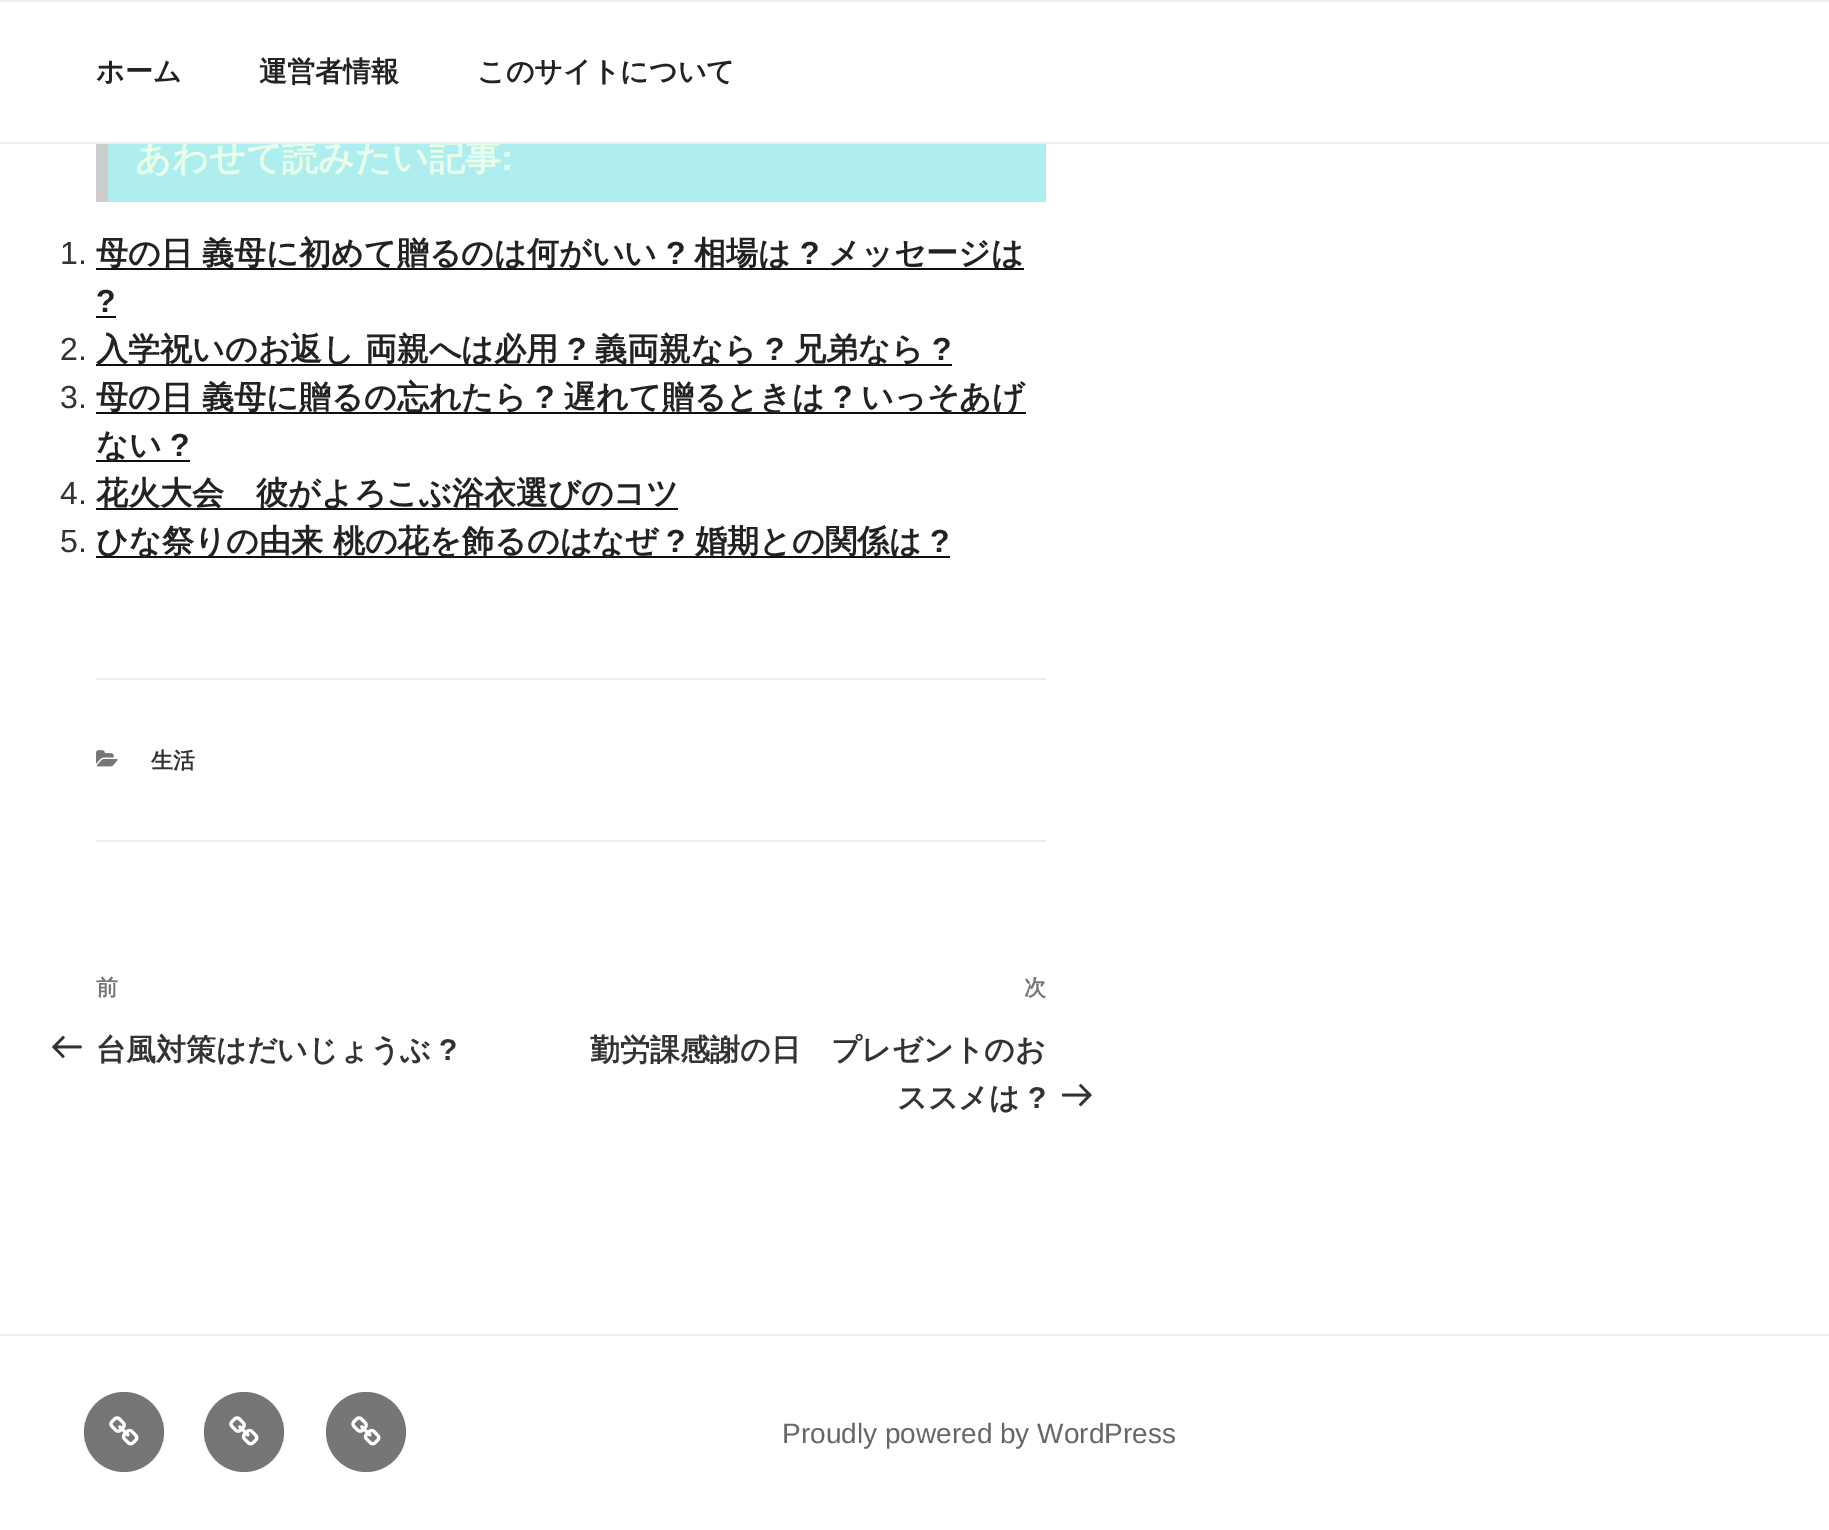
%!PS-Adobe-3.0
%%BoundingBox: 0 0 1829 1530
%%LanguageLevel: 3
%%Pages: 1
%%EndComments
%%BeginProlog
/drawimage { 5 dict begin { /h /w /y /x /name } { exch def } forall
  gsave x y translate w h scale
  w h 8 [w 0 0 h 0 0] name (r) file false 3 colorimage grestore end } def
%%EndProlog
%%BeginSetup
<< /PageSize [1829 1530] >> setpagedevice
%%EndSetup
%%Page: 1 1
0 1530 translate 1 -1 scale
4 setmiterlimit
1 setgray
0 0 1829 1530 rectfill
0.933 setgray
0 0 1829 2 rectfill
0.686 0.933 0.933 setrgbcolor
108 144 938 58 rectfill
0.8 setgray
96 144 12 58 rectfill
0.059 setgray
96 268 928 2 rectfill
96 316 20 2 rectfill
96 364 856 2 rectfill
96 412 930 2 rectfill
96 460 94 2 rectfill
96 508 582 2 rectfill
96 556 854 2 rectfill
0.933 setgray
96 678 950 2 rectfill
96 840 950 2 rectfill
(images/1.raw) 96 750 22 17 drawimage
(images/2.raw) 52 1035 30 24 drawimage
(images/3.raw) 1062 1083 30 24 drawimage
0 1334 1829 2 rectfill
0.463 setgray
newpath 124 1432 40 0 360 arc closepath fill
(images/4.raw) 109 1416 30 30 drawimage
newpath 244 1432 40 0 360 arc closepath fill
(images/4.raw) 229 1416 30 30 drawimage
newpath 366 1432 40 0 360 arc closepath fill
(images/4.raw) 351 1416 30 30 drawimage
/WenQuanYiZenHei-Bold [28 0 0 -28 0 0] selectfont
0.133 setgray
96 81 moveto (ホーム) show
259 81 moveto (運営者情報) show
477 81 moveto (このサイトについて) show
/WenQuanYiZenHei-Bold [36 0 0 -36 0 0] selectfont
0.918 1 0.918 setrgbcolor
135 170 moveto (あわせて読みたい記事) show
0.933 setgray
0 142 1829 2 rectfill
1 setgray
285 140 199 2 rectfill
/LiberationSans-Bold [36 0 0 -36 0 0] selectfont
0.918 1 0.918 setrgbcolor
501 170 moveto (:) show
/LiberationSans-Regular [32 0 0 -32 0 0] selectfont
0.2 setgray
60 264 moveto (1.) show
/WenQuanYiZenHei-Bold [32 0 0 -32 0 0] selectfont
0.133 setgray
96 264 moveto (母の日 義母に初めて贈るのは何がいい) show
/LiberationSans-Bold [32 0 0 -32 0 0] selectfont
666 264 moveto (?) show
/WenQuanYiZenHei-Bold [32 0 0 -32 0 0] selectfont
694 264 moveto (相場は) show
/LiberationSans-Bold [32 0 0 -32 0 0] selectfont
800 264 moveto (?) show
/WenQuanYiZenHei-Bold [32 0 0 -32 0 0] selectfont
828 264 moveto (メッセージは) show
/LiberationSans-Bold [32 0 0 -32 0 0] selectfont
96 312 moveto (?) show
/LiberationSans-Regular [32 0 0 -32 0 0] selectfont
0.2 setgray
60 360 moveto (2.) show
/WenQuanYiZenHei-Bold [32 0 0 -32 0 0] selectfont
0.133 setgray
96 360 moveto (入学祝いのお返し 両親へは必用) show
/LiberationSans-Bold [32 0 0 -32 0 0] selectfont
567 360 moveto (?) show
/WenQuanYiZenHei-Bold [32 0 0 -32 0 0] selectfont
595 360 moveto (義両親なら) show
/LiberationSans-Bold [32 0 0 -32 0 0] selectfont
765 360 moveto (?) show
/WenQuanYiZenHei-Bold [32 0 0 -32 0 0] selectfont
794 360 moveto (兄弟なら) show
/LiberationSans-Bold [32 0 0 -32 0 0] selectfont
932 360 moveto (?) show
/LiberationSans-Regular [32 0 0 -32 0 0] selectfont
0.2 setgray
60 408 moveto (3.) show
/WenQuanYiZenHei-Bold [32 0 0 -32 0 0] selectfont
0.133 setgray
96 408 moveto (母の日 義母に贈るの忘れたら) show
/LiberationSans-Bold [32 0 0 -32 0 0] selectfont
535 408 moveto (?) show
/WenQuanYiZenHei-Bold [32 0 0 -32 0 0] selectfont
564 408 moveto (遅れて贈るときは) show
/LiberationSans-Bold [32 0 0 -32 0 0] selectfont
833 408 moveto (?) show
/WenQuanYiZenHei-Bold [32 0 0 -32 0 0] selectfont
861 408 moveto (いっそあげ) show
96 456 moveto (ない) show
/LiberationSans-Bold [32 0 0 -32 0 0] selectfont
170 456 moveto (?) show
/LiberationSans-Regular [32 0 0 -32 0 0] selectfont
0.2 setgray
60 504 moveto (4.) show
/WenQuanYiZenHei-Bold [32 0 0 -32 0 0] selectfont
0.133 setgray
96 504 moveto (花火大会　彼がよろこぶ浴衣選びのコツ) show
/LiberationSans-Regular [32 0 0 -32 0 0] selectfont
0.2 setgray
60 552 moveto (5.) show
/WenQuanYiZenHei-Bold [32 0 0 -32 0 0] selectfont
0.133 setgray
96 552 moveto (ひな祭りの由来 桃の花を飾るのはなぜ) show
/LiberationSans-Bold [32 0 0 -32 0 0] selectfont
666 552 moveto (?) show
/WenQuanYiZenHei-Bold [32 0 0 -32 0 0] selectfont
695 552 moveto (婚期との関係は) show
/LiberationSans-Bold [32 0 0 -32 0 0] selectfont
930 552 moveto (?) show
/WenQuanYiZenHei-Bold [22 0 0 -22 0 0] selectfont
0.2 setgray
151 768 moveto (生活) show
0.463 setgray
96 995 moveto (前) show
/WenQuanYiZenHei-Bold [30 0 0 -30 0 0] selectfont
0.2 setgray
96 1060 moveto (台風対策はだいじょうぶ) show
/LiberationSans-Bold [30 0 0 -30 0 0] selectfont
439 1060 moveto (?) show
/WenQuanYiZenHei-Bold [22 0 0 -22 0 0] selectfont
0.463 setgray
1024 995 moveto (次) show
/WenQuanYiZenHei-Bold [30 0 0 -30 0 0] selectfont
0.2 setgray
590 1060 moveto (勤労課感謝の日　プレゼントのお) show
897 1108 moveto (ススメは) show
/LiberationSans-Bold [30 0 0 -30 0 0] selectfont
1028 1108 moveto (?) show
/LiberationSans-Regular [28 0 0 -28 0 0] selectfont
0.4 setgray
782 1443 moveto (Proudly powered by WordPress) show
showpage
%%EOF
